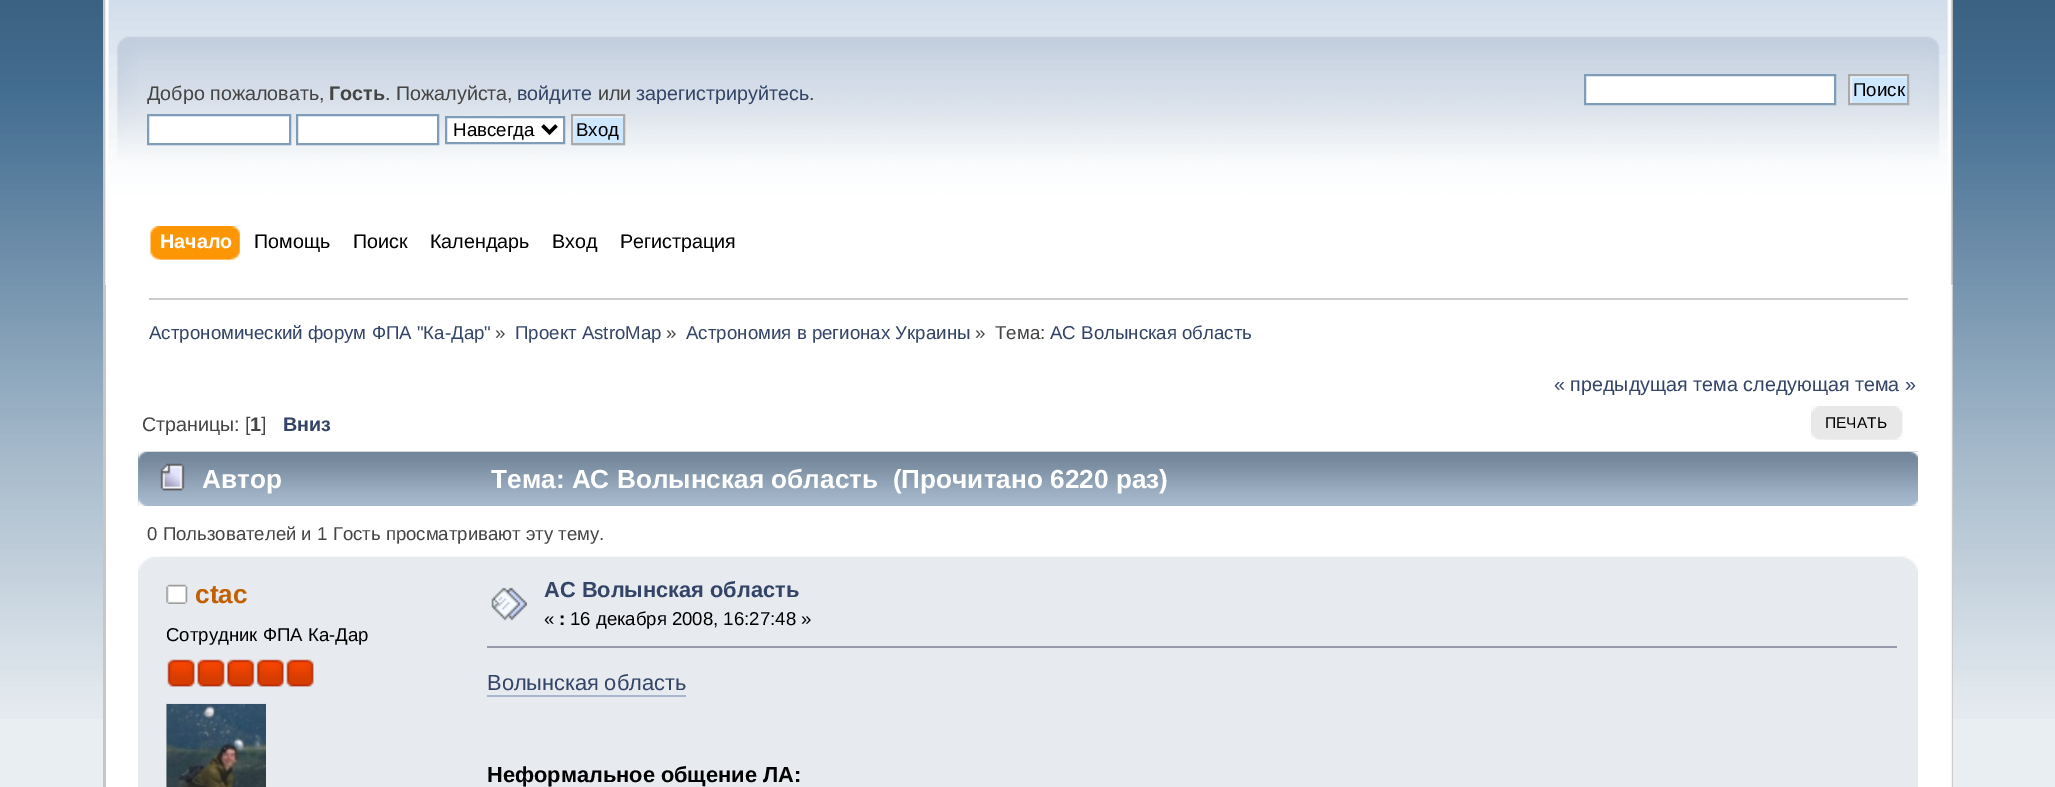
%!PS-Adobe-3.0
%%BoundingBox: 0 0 2055 787
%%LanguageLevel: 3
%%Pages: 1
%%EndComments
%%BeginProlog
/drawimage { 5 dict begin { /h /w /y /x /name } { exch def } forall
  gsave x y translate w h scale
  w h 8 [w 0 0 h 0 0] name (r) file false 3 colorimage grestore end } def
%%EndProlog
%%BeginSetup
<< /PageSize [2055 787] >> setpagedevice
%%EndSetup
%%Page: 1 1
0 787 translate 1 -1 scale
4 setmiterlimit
0.914 0.933 0.949 setrgbcolor
0 0 2055 787 rectfill
(images/1.raw) 0 0 2055 719 drawimage
(images/2.raw) 103 0 36 285 drawimage
(images/3.raw) 138 0 1815 285 drawimage
1 setgray
newpath 148 115 moveto 290 115 lineto 290 144 lineto 148 144 lineto closepath gsave fill grestore
0.498 0.616 0.725 setrgbcolor
2 setlinewidth
stroke
1 setgray
newpath 297 115 moveto 438 115 lineto 438 144 lineto 297 144 lineto closepath gsave fill grestore
0.498 0.616 0.725 setrgbcolor
stroke
1 setgray
newpath 446 117 moveto 564 117 lineto 564 143 lineto 446 143 lineto closepath gsave fill grestore
0.498 0.616 0.725 setrgbcolor
stroke
0 setgray
3.5 setlinewidth
newpath 542.5 125.5 moveto 549.5 132.5 lineto 556.5 125.5 lineto stroke
(images/4.raw) 572 116 53 30 drawimage
0.667 setgray
2 setlinewidth
572 115 52 29 rectstroke
1 setgray
newpath 1585 75 moveto 1835 75 lineto 1835 104 lineto 1585 104 lineto closepath gsave fill grestore
0.498 0.616 0.725 setrgbcolor
stroke
(images/5.raw) 1849 75 61 31 drawimage
0.667 setgray
1849 75 59 29 rectstroke
(images/6.raw) 159 226 81 34 drawimage
(images/7.raw) 150 226 81 34 drawimage
1 setgray
106 285 1847 502 rectfill
0.776 setgray
103 285 3 502 rectfill
(images/8.raw) 1951 285 2 502 drawimage
0.8 setgray
149 298 1759 2 rectfill
0.91 setgray
1811 406 91 33 rectfill
(images/9.raw) 1811 406 92 34 drawimage
(images/10.raw) 1825 406 78 34 drawimage
(images/11.raw) 138 451 1780 55 drawimage
(images/12.raw) 154 451 1764 55 drawimage
(images/13.raw) 160 463 25 28 drawimage
0.906 0.918 0.937 setrgbcolor
138 557 1780 230 rectfill
(images/14.raw) 138 556 1780 15 drawimage
(images/15.raw) 174 556 1744 15 drawimage
(images/16.raw) 166 584 22 20 drawimage
(images/17.raw) 167 659 28 28 drawimage
(images/18.raw) 197 659 28 28 drawimage
(images/19.raw) 227 659 28 28 drawimage
(images/20.raw) 256 659 28 28 drawimage
(images/21.raw) 286 659 28 28 drawimage
(images/22.raw) 166 703 100 84 drawimage
(images/23.raw) 491 587 36 34 drawimage
0.6 0.6 0.667 setrgbcolor
487 646 1410 2 rectfill
0.659 0.714 0.812 setrgbcolor
487 695 199 2 rectfill
gsave
147 74 882 85 rectclip
/LiberationSans-Regular [19.7 0 0 -19.7 0 0] selectfont
0.267 setgray
147 100 moveto (Добро пожаловать,) show
grestore
/LiberationSans-Bold [19.7 0 0 -19.7 0 0] selectfont
0.267 setgray
329 100 moveto (Гость) show
/LiberationSans-Regular [19.7 0 0 -19.7 0 0] selectfont
385 100 moveto (. Пожалуйста,) show
0.2 0.267 0.4 setrgbcolor
517 100 moveto (войдите) show
0.267 setgray
598 100 moveto (или) show
0.2 0.267 0.4 setrgbcolor
636 100 moveto (зарегистрируйтесь) show
0.267 setgray
809 100 moveto (.) show
/LiberationSans-Regular [18.7 0 0 -18.7 0 0] selectfont
0 setgray
453 136 moveto (Навсегда) show
576 136 moveto (Вход) show
1853 96 moveto (Поиск) show
/LiberationSans-Bold [19.7 0 0 -19.7 0 0] selectfont
1 setgray
160 248 moveto (Начало) show
/LiberationSans-Regular [19.7 0 0 -19.7 0 0] selectfont
0 setgray
254 248 moveto (Помощь) show
353 248 moveto (Поиск) show
430 248 moveto (Календарь) show
552 248 moveto (Вход) show
620 248 moveto (Регистрация) show
/LiberationSans-Regular [18.7 0 0 -18.7 0 0] selectfont
0.2 0.267 0.4 setrgbcolor
149 339 moveto (Астрономический форум ФПА "Ка-Дар") show
0.267 setgray
495 339 moveto (») show
0.2 0.267 0.4 setrgbcolor
515 339 moveto (Проект AstroMap) show
0.267 setgray
666 339 moveto (») show
0.2 0.267 0.4 setrgbcolor
686 339 moveto (Астрономия в регионах Украины) show
0.267 setgray
975 339 moveto (») show
995 339 moveto (Тема:) show
0.2 0.267 0.4 setrgbcolor
1050 339 moveto (АС Волынская область) show
/LiberationSans-Regular [19.7 0 0 -19.7 0 0] selectfont
1554 391 moveto (« предыдущая тема следующая тема ») show
0.267 setgray
142 431 moveto (Страницы: [) show
/LiberationSans-Bold [19.7 0 0 -19.7 0 0] selectfont
250 431 moveto (1) show
/LiberationSans-Regular [19.7 0 0 -19.7 0 0] selectfont
261 431 moveto (]) show
/LiberationSans-Bold [19.7 0 0 -19.7 0 0] selectfont
0.2 0.267 0.4 setrgbcolor
283 431 moveto (Вниз) show
/LiberationSans-Regular [15.5 0 0 -15.5 0 0] selectfont
0 setgray
1825 428 moveto (ПЕЧАТЬ) show
/LiberationSans-Bold [26.2 0 0 -26.2 0 0] selectfont
1 setgray
202 488 moveto (Автор) show
491 488 moveto (Тема: АС Волынская область  \(Прочитано 6220 раз\)) show
/LiberationSans-Regular [18.6 0 0 -18.6 0 0] selectfont
0.267 setgray
147 540 moveto (0 Пользователей и 1 Гость просматривают эту тему.) show
/LiberationSans-Bold [26.2 0 0 -26.2 0 0] selectfont
0.753 0.376 0.008 setrgbcolor
195 603 moveto (ctac) show
/LiberationSans-Regular [18.6 0 0 -18.6 0 0] selectfont
0 setgray
166 641 moveto (Сотрудник ФПА Ка-Дар) show
/LiberationSans-Bold [21.8 0 0 -21.8 0 0] selectfont
0.2 0.267 0.4 setrgbcolor
544 597 moveto (АС Волынская область) show
/LiberationSans-Regular [18.6 0 0 -18.6 0 0] selectfont
0 setgray
544 625 moveto («) show
/LiberationSans-Bold [18.6 0 0 -18.6 0 0] selectfont
559 625 moveto (:) show
/LiberationSans-Regular [18.6 0 0 -18.6 0 0] selectfont
570 625 moveto (16 декабря 2008, 16:27:48 ») show
/LiberationSans-Regular [21.8 0 0 -21.8 0 0] selectfont
0.2 0.267 0.4 setrgbcolor
487 690 moveto (Волынская область) show
/LiberationSans-Bold [21.8 0 0 -21.8 0 0] selectfont
0 setgray
487 782 moveto (Неформальное общение ЛА:) show
showpage
%%EOF
